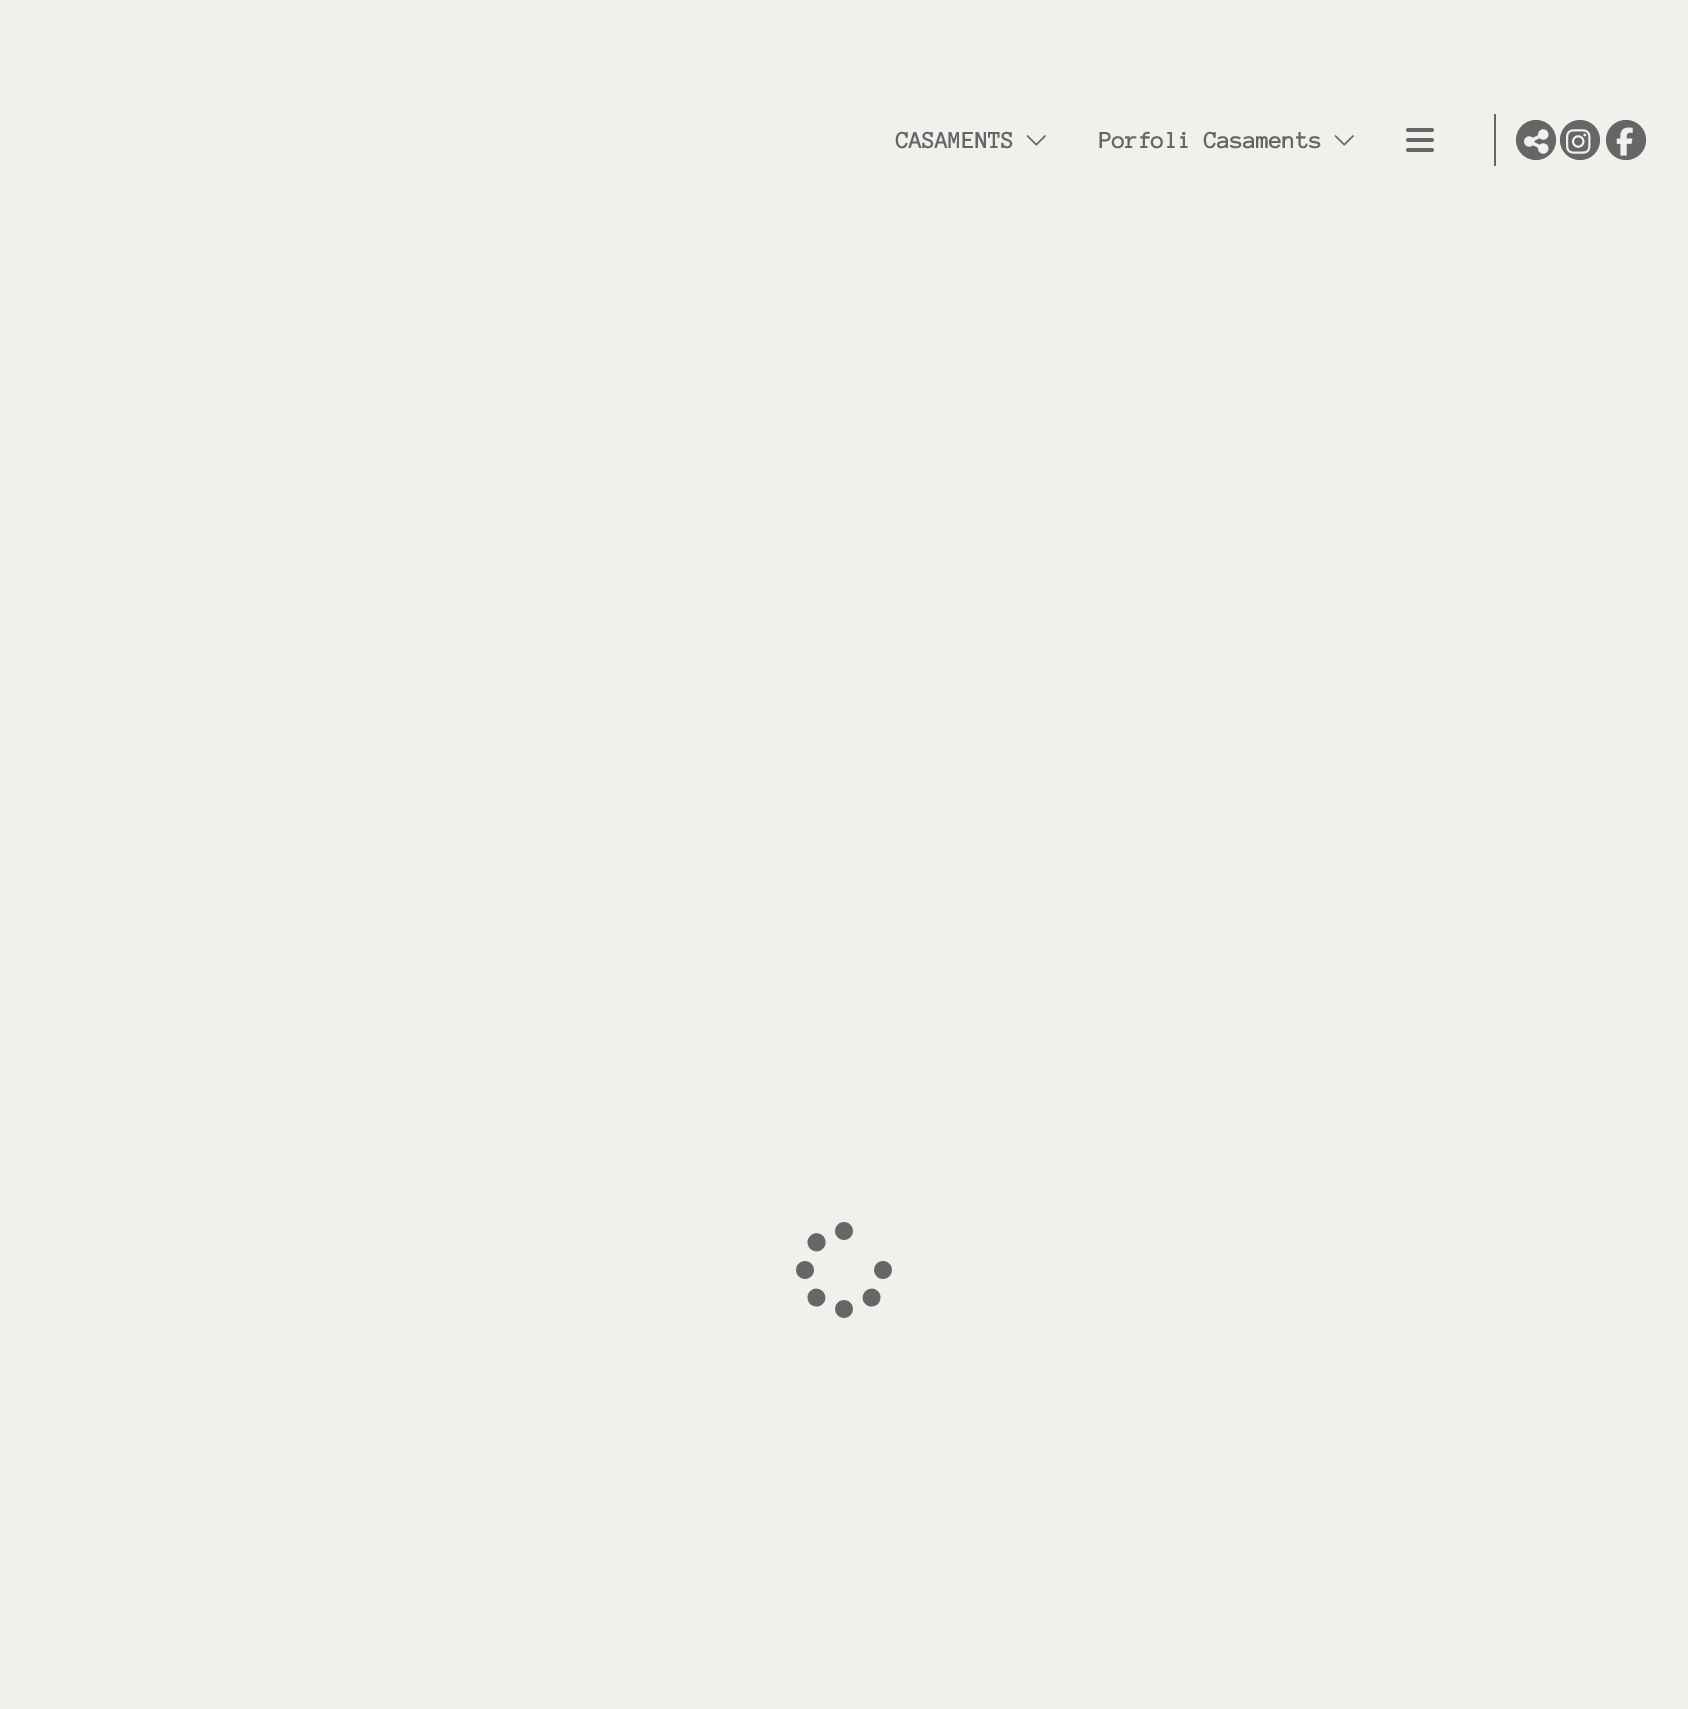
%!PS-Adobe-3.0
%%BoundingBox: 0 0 1688 1709
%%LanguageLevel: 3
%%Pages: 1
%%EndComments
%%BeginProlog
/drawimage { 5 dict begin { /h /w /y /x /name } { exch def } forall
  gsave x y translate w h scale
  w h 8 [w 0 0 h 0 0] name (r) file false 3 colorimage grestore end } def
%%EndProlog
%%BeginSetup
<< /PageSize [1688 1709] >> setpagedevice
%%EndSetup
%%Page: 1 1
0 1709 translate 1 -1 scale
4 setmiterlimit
0.945 0.941 0.929 setrgbcolor
0 0 1688 1709 rectfill
(images/1.raw) 1026 135 20 11 drawimage
(images/1.raw) 1334 135 20 11 drawimage
(images/2.raw) 1406 128 28 24 drawimage
0.4 setgray
1494 114 2 52 rectfill
newpath 1536 140 20 0 360 arc closepath fill
(images/3.raw) 1524 129 25 25 drawimage
newpath 1580 140 20 0 360 arc closepath fill
(images/4.raw) 1566 129 25 25 drawimage
newpath 1626 140 20 0 360 arc closepath fill
(images/5.raw) 1616 127 17 29 drawimage
(images/6.raw) 796 1222 96 96 drawimage
/AnonymousPro-Bold [24 0 0 -24 0 0] selectfont
896 148 moveto (CASAMENTS) show
1099 148 moveto (Porfoli Casaments) show
showpage
%%EOF
